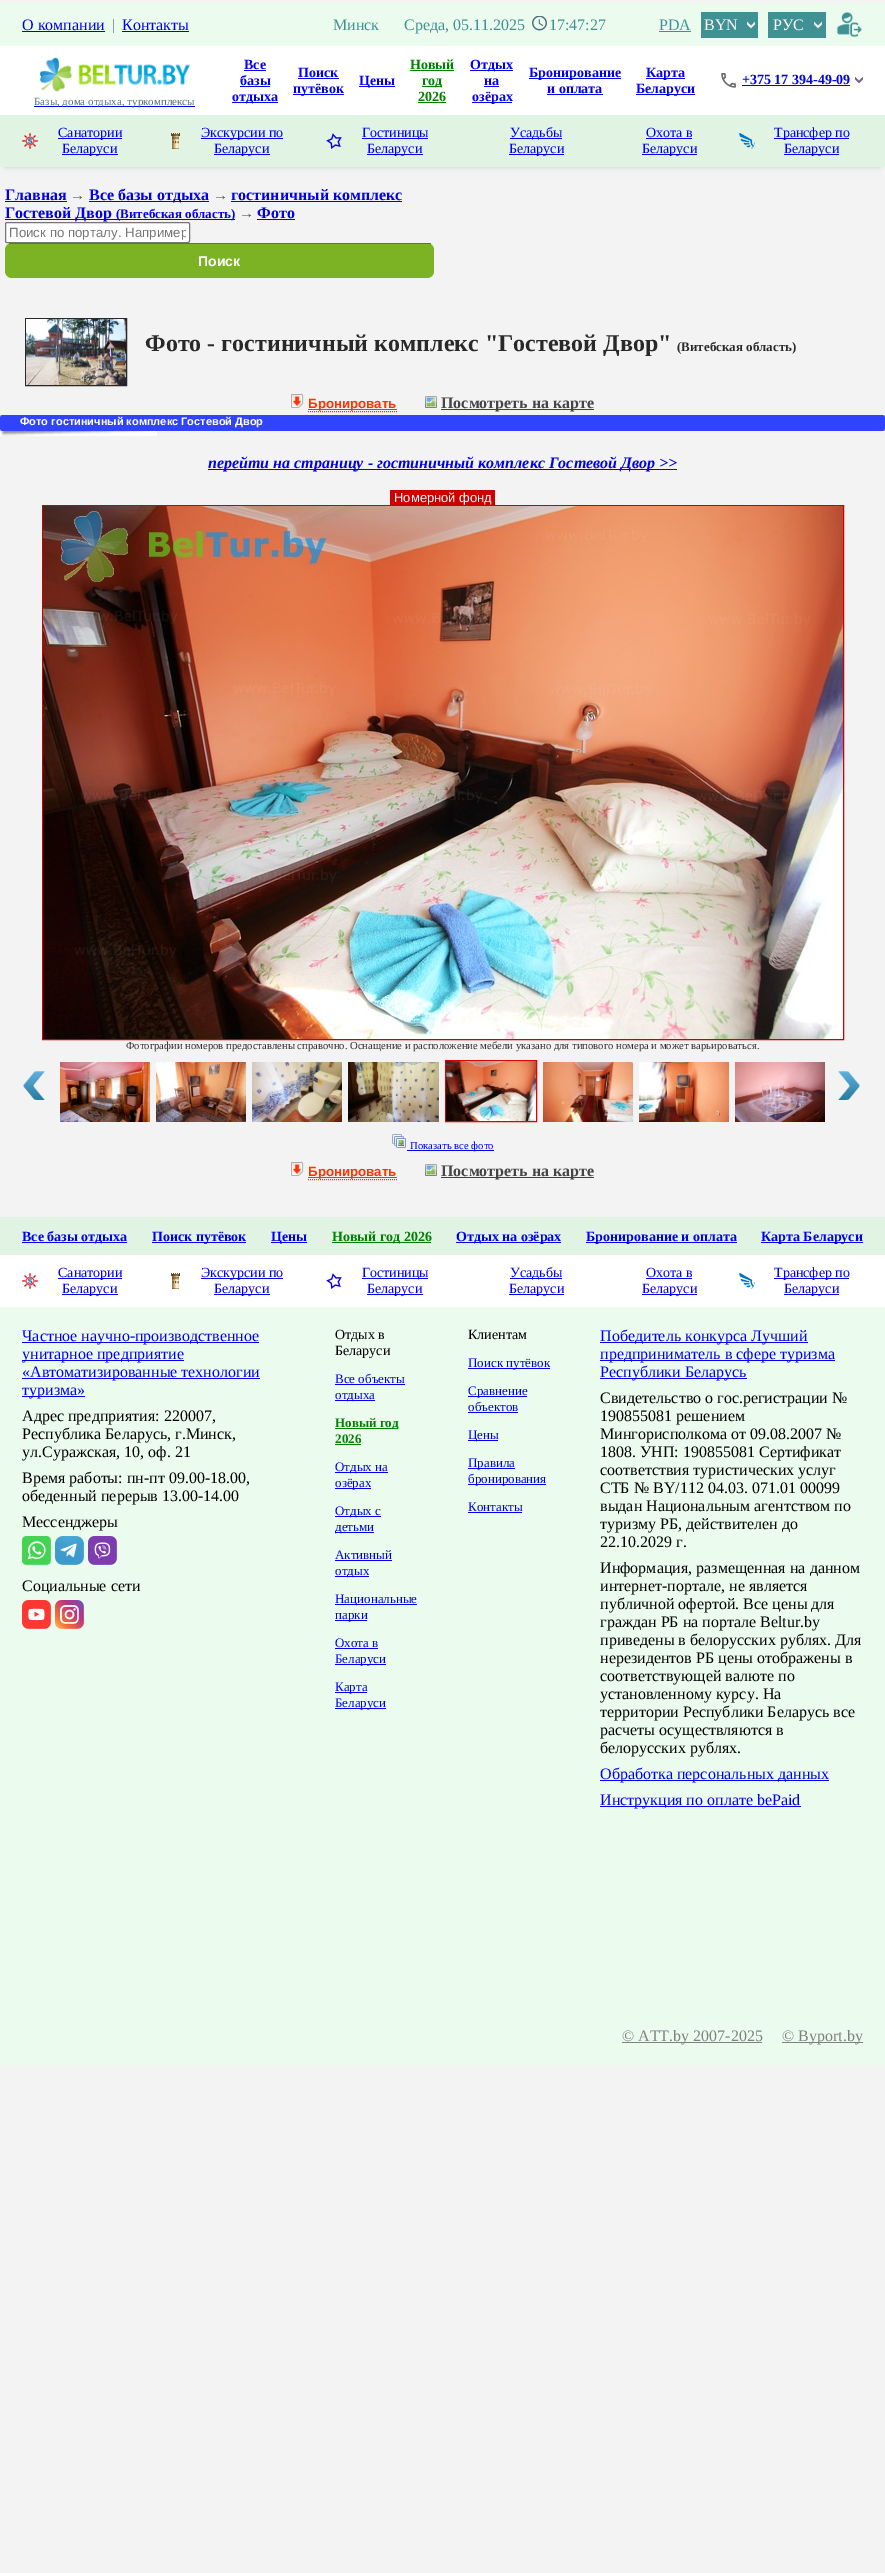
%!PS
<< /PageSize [885 2573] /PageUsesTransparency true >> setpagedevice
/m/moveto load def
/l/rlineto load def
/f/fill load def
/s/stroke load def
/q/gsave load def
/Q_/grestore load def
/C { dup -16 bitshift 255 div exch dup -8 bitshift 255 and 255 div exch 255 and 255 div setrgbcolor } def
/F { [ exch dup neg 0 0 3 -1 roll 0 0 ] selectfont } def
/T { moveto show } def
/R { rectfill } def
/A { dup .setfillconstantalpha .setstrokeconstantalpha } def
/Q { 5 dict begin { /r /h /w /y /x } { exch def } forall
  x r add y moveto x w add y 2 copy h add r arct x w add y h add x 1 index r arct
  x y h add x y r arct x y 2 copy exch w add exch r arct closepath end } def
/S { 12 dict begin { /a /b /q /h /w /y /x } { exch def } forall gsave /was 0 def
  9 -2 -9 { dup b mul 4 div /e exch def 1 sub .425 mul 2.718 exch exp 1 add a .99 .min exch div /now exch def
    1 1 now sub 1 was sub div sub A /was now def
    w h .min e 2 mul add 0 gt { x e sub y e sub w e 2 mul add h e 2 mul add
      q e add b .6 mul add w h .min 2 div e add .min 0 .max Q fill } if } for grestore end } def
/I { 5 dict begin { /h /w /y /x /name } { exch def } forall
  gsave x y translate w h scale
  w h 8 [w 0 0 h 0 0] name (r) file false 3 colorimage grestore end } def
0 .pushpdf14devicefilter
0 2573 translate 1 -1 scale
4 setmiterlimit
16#F3F3F3 C
0 0 885 2573 R
16#223C50 C
5 13 875 154 0 2.5 .2 S
16#FFFFFF C
0 46 885 69 R
16#EBFBED C
0 3 885 43 R
/LiberationSerif-Regular 16 F
16#0000EE C
(О компании) 22 30 T
22 31 83 1 R
16#9A9A9A C
113 19 1 14 R
16#0000EE C
(Контакты) 122 30 T
122 31 67 1 R
16#3F9194 C
(Минск) 333 30 T
(Среда, 05.11.2025) 404 30 T
(1.rgb) 532 16 15 15 I
(17:47:27) 549 30 T
(PDA) 659 30 T
659 31 32 1 R
701 12 57 26 R
16#FFFFFF C
(BYN) 704 30 T
(2.rgb) 747 21 8 8 I
16#3F9194 C
768 12 58 26 R
16#FFFFFF C
(РУС) 773 30 T
(2.rgb) 814 21 8 8 I
(3.rgb) 836 12 26 26 I
/LiberationSerif-Bold 14 F
16#0000EE C
(Все) 244 69 T
244 70 22 1 R
(базы) 240 85 T
240 86 30 1 R
232 102 46 1 R
(отдыха) 232 101 T
(Поиск) 298 77 T
298 78 41 1 R
293 94 51 1 R
(путёвок) 293 93 T
359 86 36 1 R
(Цены) 359 85 T
16#008000 C
(Новый) 410 69 T
410 70 44 1 R
422 86 20 1 R
(год) 422 85 T
(2026) 418 101 T
418 102 28 1 R
16#0000EE C
470 70 43 1 R
(Отдых) 470 69 T
(на) 484 85 T
484 86 15 1 R
472 102 40 1 R
(озёрах) 472 101 T
529 78 92 1 R
(Бронирование) 529 77 T
(и оплата) 547 93 T
547 94 56 1 R
646 78 39 1 R
(Карта) 646 77 T
636 94 59 1 R
(Беларуси) 636 93 T
(4.rgb) 721 73 15 15 I
(+375 17 394-49-09) 742 84 T
742 85 108 1 R
(5.rgb) 855 76 8 8 I
(6.rgb) 40 57 150 35 I
34 106 161 1 R
/LiberationSerif-Regular 11 F
16#546E7A C
(Базы, дома отдыха, туркомплексы) 34 105 T
16#E1F3E3 C
0 115 885 52 R
(7.rgb) 22 133 16 16 I
16#0000EE C
58 138 64 1 R
/LiberationSerif-Regular 14 F
(Санатории) 58 137 T
62 154 56 1 R
(Беларуси) 62 153 T
(8.rgb) 171 133 9 16 I
201 138 82 1 R
(Экскурсии по) 201 137 T
214 154 56 1 R
(Беларуси) 214 153 T
(9.rgb) 326 133 16 16 I
362 138 66 1 R
(Гостиницы) 362 137 T
367 154 56 1 R
(Беларуси) 367 153 T
510 138 52 1 R
(Усадьбы) 510 137 T
509 154 55 1 R
(Беларуси) 509 153 T
(Охота в) 646 137 T
646 138 46 1 R
642 154 55 1 R
(Беларуси) 642 153 T
(10.rgb) 739 133 16 16 I
774 138 75 1 R
(Трансфер по) 774 137 T
784 154 55 1 R
(Беларуси) 784 153 T
/LiberationSerif-Bold 16 F
(Главная) 5 200 T
5 201 62 1 R
/LiberationSerif-Bold 15 F
16#454545 C
(→) 70 200 T
16#0000EE C
89 201 120 1 R
/LiberationSerif-Bold 16 F
(Все базы отдыха) 89 200 T
/LiberationSerif-Bold 15 F
16#454545 C
(→) 213 200 T
/LiberationSerif-Bold 16 F
16#0000EE C
(гостиничный комплекс) 231 200 T
231 201 171 1 R
5 219 230 1 R
(Гостевой Двор) 5 218 T
/LiberationSerif-Bold 13 F
(\(Витебская область\)) 116 218 T
/LiberationSerif-Bold 15 F
16#454545 C
(→) 239 218 T
/LiberationSerif-Bold 16 F
16#0000EE C
(Фото) 257 218 T
257 219 38 1 R
16#FFFFFF C
5.5 222.5 184 20 1.5 Q q f Q_
16#767676 C
s
q
9 225 177 15 rectclip
/LiberationSans-Regular 13.3 F
16#757575 C
(Поиск по порталу. Например) 9 237 T
Q_
16#7BB324 C
5 243 429 35 7 Q f
16#538018 C
9 243 422 1 R
/LiberationSans-Bold 14 F
16#FFFFFF C
(Поиск) 198 266 T
16#292929 C
25.5 318.5 101 67 rectstroke
(11.rgb) 26 319 100 66 I
/LiberationSerif-Bold 24 F
(Фото - гостиничный комплекс "Гостевой Двор") 145 351 T
/LiberationSerif-Bold 13 F
(\(Витебская область\)) 677 351 T
(12.rgb) 291 394 13 14 I
16#FF3300 C
308 409 89 1 R
/LiberationSans-Bold 13.3 F
(Бронировать) 308 408 T
[1 1] 0 setdash
308 411.5 m 89 0 l s
(13.rgb) 425 396 12 12 I
16#414141 C
441 409 153 1 R
/LiberationSerif-Bold 16 F
16#454545 C
(Поcмотреть на карте) 441 408 T
16#3044FE C
0 415 885 16 R
(14.rgb) 883 415 2 16 I
(15.rgb) 0 415 2 16 I
/LiberationSans-Bold 11 F
16#FFFFFF C
(Фото гостиничный комплекс Гостевой Двор) 20 425 T
(16.rgb) 0 431 157 5 I
16#0000EE C
208 469 469 1 R
/LiberationSerif-BoldItalic 16 F
(перейти на страницу - гостиничный комплекс Гостевой Двор >>) 208 468 T
16#CC0000 C
390 490 105 15 R
/LiberationSans-Regular 13 F
16#FFFFFF C
(Номерной фонд) 394 502 T
16#CC0000 C
[] 0 setdash
42.5 505.5 801 534 rectstroke
(17.rgb) 43 506 800 533 I
/LiberationSerif-Regular 10.67 F
16#313131 C
(Фотографии номеров предоставлены справочно. Оснащение и расположение мебели указано для типового номера и может варьироваться.) 126 1049 T
(18.rgb) 23 1071 22 29 I
(19.rgb) 838 1071 22 29 I
16#DF0000 C
445.5 1060.5 91 61 rectstroke
(20.rgb) 60 1062 90 60 I
(21.rgb) 156 1062 90 60 I
(22.rgb) 252 1062 90 60 I
(23.rgb) 348 1062 91 60 I
(24.rgb) 446 1061 90 60 I
(25.rgb) 543 1062 90 60 I
(26.rgb) 639 1062 90 60 I
(27.rgb) 735 1062 90 60 I
(28.rgb) 392 1134 14 14 I
16#0000EE C
407 1150 87 1 R
(Показать все фото) 410 1149 T
(12.rgb) 291 1162 13 14 I
16#FF3300 C
308 1177 89 1 R
/LiberationSans-Bold 13.3 F
(Бронировать) 308 1176 T
[1 1] 0 setdash
308 1179.5 m 89 0 l s
(13.rgb) 425 1164 12 12 I
16#414141 C
441 1177 153 1 R
/LiberationSerif-Bold 16 F
16#454545 C
(Поcмотреть на карте) 441 1176 T
16#EBFBED C
0 1307 885 758 R
16#E1F3E3 C
0 1217 885 38 R
16#0000EE C
22 1242 105 1 R
/LiberationSerif-Bold 14 F
(Все базы отдыха) 22 1241 T
152 1242 94 1 R
(Поиск путёвок) 152 1241 T
271 1242 36 1 R
(Цены) 271 1241 T
16#008000 C
332 1242 99 1 R
(Новый год 2026) 332 1241 T
16#0000EE C
456 1242 105 1 R
(Отдых на озёрах) 456 1241 T
586 1242 151 1 R
(Бронирование и оплата) 586 1241 T
761 1242 102 1 R
(Карта Беларуси) 761 1241 T
16#FFFFFF C
0 1255 885 52 R
(29.rgb) 22 1273 16 16 I
16#0000EE C
58 1278 64 1 R
/LiberationSerif-Regular 14 F
(Санатории) 58 1277 T
62 1294 56 1 R
(Беларуси) 62 1293 T
(30.rgb) 171 1273 9 16 I
201 1278 82 1 R
(Экскурсии по) 201 1277 T
214 1294 56 1 R
(Беларуси) 214 1293 T
(31.rgb) 326 1273 16 16 I
362 1278 66 1 R
(Гостиницы) 362 1277 T
367 1294 56 1 R
(Беларуси) 367 1293 T
510 1278 52 1 R
(Усадьбы) 510 1277 T
509 1294 55 1 R
(Беларуси) 509 1293 T
(Охота в) 646 1277 T
646 1278 46 1 R
642 1294 55 1 R
(Беларуси) 642 1293 T
(32.rgb) 739 1273 16 16 I
774 1278 75 1 R
(Трансфер по) 774 1277 T
784 1294 55 1 R
(Беларуси) 784 1293 T
22 1342 237 1 R
/LiberationSerif-Regular 16 F
(Частное научно-производственное) 22 1341 T
22 1360 162 1 R
(унитарное предприятие) 22 1359 T
22 1378 238 1 R
(«Автоматизированные технологии) 22 1377 T
22 1396 63 1 R
(туризма») 22 1395 T
16#000000 C
(Адрес предприятия: 220007,) 22 1421 T
(Республика Беларусь, г.Минск,) 22 1439 T
(ул.Суражская, 10, оф. 21) 22 1457 T
(Время работы: пн-пт 09.00-18.00,) 22 1483 T
(обеденный перерыв 13.00-14.00) 22 1501 T
(Мессенджеры) 22 1527 T
(33.rgb) 22 1536 29 29 I
(34.rgb) 55 1536 29 29 I
(35.rgb) 88 1536 29 29 I
(Социальные сети) 22 1591 T
(36.rgb) 22 1600 29 29 I
(37.rgb) 55 1600 29 29 I
/LiberationSerif-Regular 14 F
(Отдых в) 335 1339 T
(Беларуси) 335 1355 T
/LiberationSerif-Regular 13 F
16#0000EE C
(Все объекты) 335 1383 T
335 1384 70 1 R
335 1400 40 1 R
(отдыха) 335 1399 T
16#008000 C
335 1428 63 1 R
/LiberationSerif-Bold 13 F
(Новый год) 335 1427 T
(2026) 335 1443 T
335 1444 26 1 R
16#0000EE C
335 1472 53 1 R
/LiberationSerif-Regular 13 F
(Отдых на) 335 1471 T
335 1488 36 1 R
(озёрах) 335 1487 T
335 1516 46 1 R
(Отдых с) 335 1515 T
335 1532 39 1 R
(детьми) 335 1531 T
(Активный) 335 1559 T
335 1560 57 1 R
335 1576 34 1 R
(отдых) 335 1575 T
335 1604 82 1 R
(Национальные) 335 1603 T
335 1620 32 1 R
(парки) 335 1619 T
(Охота в) 335 1647 T
335 1648 43 1 R
335 1664 51 1 R
(Беларуси) 335 1663 T
335 1692 32 1 R
(Карта) 335 1691 T
335 1708 51 1 R
(Беларуси) 335 1707 T
/LiberationSerif-Regular 14 F
16#000000 C
(Клиентам) 468 1339 T
16#0000EE C
468 1368 82 1 R
/LiberationSerif-Regular 13 F
(Поиск путёвок) 468 1367 T
468 1396 59 1 R
(Сравнение) 468 1395 T
(объектов) 468 1411 T
468 1412 50 1 R
468 1440 30 1 R
(Цены) 468 1439 T
468 1468 47 1 R
(Правила) 468 1467 T
468 1484 78 1 R
(бронирования) 468 1483 T
(Контакты) 468 1511 T
468 1512 54 1 R
600 1342 208 1 R
/LiberationSerif-Regular 16 F
(Победитель конкурса Лучший) 600 1341 T
600 1360 235 1 R
(предприниматель в сфере туризма) 600 1359 T
600 1378 147 1 R
(Республики Беларусь) 600 1377 T
16#000000 C
(Свидетельство о гос.регистрации №) 600 1403 T
(190855081 решением) 600 1421 T
(Мингорисполкома от 09.08.2007 №) 600 1439 T
(1808. УНП: 190855081 Сертификат) 600 1457 T
(соответствия туристических услуг) 600 1475 T
(СТБ № BY/112 04.03. 071.01 00099) 600 1493 T
(выдан Национальным агентством по) 600 1511 T
(туризму РБ, действителен до) 600 1529 T
(22.10.2029 г.) 600 1547 T
(Информация, размещенная на данном) 600 1573 T
(интернет-портале, не является) 600 1591 T
(публичной офертой. Все цены для) 600 1609 T
(граждан РБ на портале Beltur.by) 600 1627 T
(приведены в белорусских рублях. Для) 600 1645 T
(нерезидентов РБ цены отображены в) 600 1663 T
(соответствующей валюте по) 600 1681 T
(установленному курсу. На) 600 1699 T
(территории Республики Беларусь все) 600 1717 T
(расчеты осуществляются в) 600 1735 T
(белорусских рублях.) 600 1753 T
16#0000EE C
600 1780 229 1 R
(Обработка персональных данных) 600 1779 T
600 1806 201 1 R
(Инструкция по оплате bePaid) 600 1805 T
16#808080 C
622 2042 140 1 R
(© ATT.by 2007-2025) 622 2041 T
782 2042 81 1 R
(© Byport.by) 782 2041 T
.poppdf14devicefilter showpage
